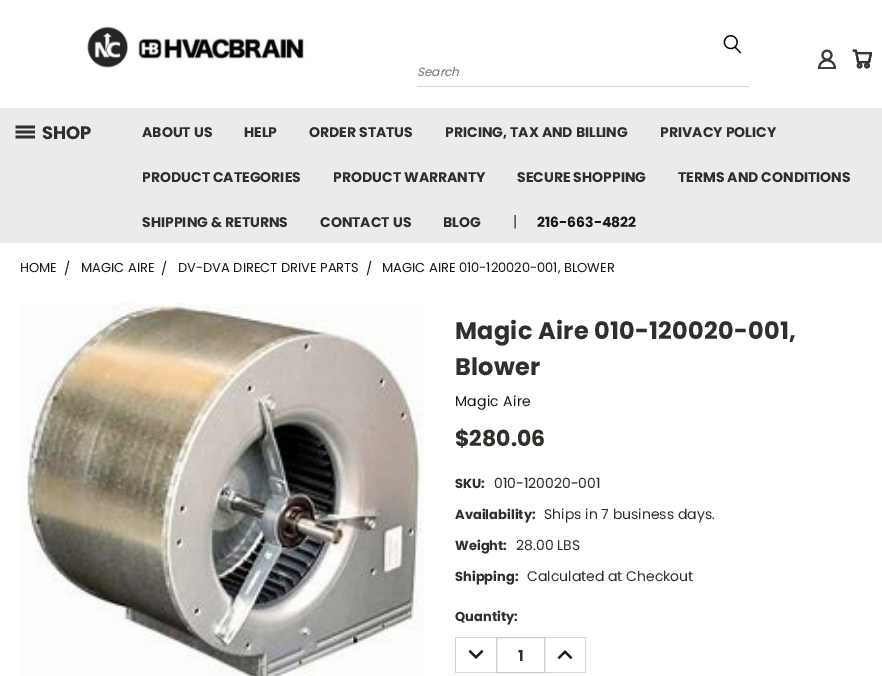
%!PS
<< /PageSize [882 676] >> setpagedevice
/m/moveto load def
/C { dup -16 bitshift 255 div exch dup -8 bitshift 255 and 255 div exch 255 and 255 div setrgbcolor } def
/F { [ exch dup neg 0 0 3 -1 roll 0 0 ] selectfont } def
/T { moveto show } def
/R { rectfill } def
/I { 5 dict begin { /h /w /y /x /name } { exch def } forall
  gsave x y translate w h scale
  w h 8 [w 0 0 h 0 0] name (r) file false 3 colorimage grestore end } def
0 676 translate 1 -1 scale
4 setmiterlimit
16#FFFFFF C
0 0 882 676 R
(1.rgb) 87 26 254 52 I
(2.rgb) 818 49 18 20 I
(3.rgb) 852 49 20 20 I
(4.rgb) 723 35 18 19 I
16#D7D7D7 C
417 86 332 1 R
/Poppins-Italic 12 F
16#70706E C
(Search) 417 76 T
16#EBEBEB C
0 108 882 135 R
(5.rgb) 15 125 20 14 I
/Poppins-Bold 18 F
16#2F2F2B C
(SHOP) 42 139 T
/Poppins-Bold 14 F
(ABOUT US) 142 137 T
(HELP) 244 137 T
(ORDER STATUS) 309 137 T
(PRICING, TAX AND BILLING) 445 137 T
(PRIVACY POLICY) 660 137 T
(PRODUCT CATEGORIES) 142 182 T
(PRODUCT WARRANTY) 333 182 T
(SECURE SHOPPING) 517 182 T
(TERMS AND CONDITIONS) 678 182 T
(SHIPPING & RETURNS) 142 227 T
(CONTACT US) 320 227 T
(BLOG) 443 227 T
/Poppins-Regular 15 F
(|) 513 227 T
/Poppins-Bold 14 F
16#191919 C
(216-663-4822) 537 227 T
/Poppins-Regular 13 F
(HOME) 20 272 T
(/) 64 273 T
(MAGIC AIRE) 81 272 T
(/) 161 273 T
(DV-DVA DIRECT DRIVE PARTS) 178 272 T
(/) 366 273 T
(MAGIC AIRE 010-120020-001, BLOWER) 382 272 T
(6.rgb) 20 303 404 373 I
/Poppins-Bold 24 F
16#2F2F2B C
455 339 m .25 0 (Magic Aire 010-120020-001,) ashow
455 375 m .25 0 (Blower) ashow
/Poppins-Regular 14 F
16#191919 C
455 406 m .25 0 (Magic Aire) ashow
/Poppins-Bold 22 F
16#2F2F2B C
($280.06) 455 446 T
/Poppins-Bold 13 F
(SKU:) 455 488 T
/Poppins-Regular 14 F
(010-120020-001) 494 488 T
/Poppins-Bold 13 F
(Availability:) 455 519 T
/Poppins-Regular 14 F
(Ships in 7 business days.) 544 519 T
/Poppins-Bold 13 F
(Weight:) 455 550 T
/Poppins-Regular 14 F
(28.00 LBS) 516 550 T
/Poppins-Bold 13 F
(Shipping:) 455 581 T
/Poppins-Regular 14 F
(Calculated at Checkout) 527 581 T
/Poppins-Bold 13 F
(Quantity:) 455 621 T
16#D7D7D7 C
455 637 41 1 R
455 672 41 1 R
455 637 1 36 R
(7.rgb) 468 649 16 10 I
16#CCCCCC C
496.5 637.5 48 35 rectstroke
/Poppins-Bold 15 F
16#2F2F2B C
(1) 518 661 T
16#D7D7D7 C
545 637 41 1 R
585 637 1 36 R
545 672 41 1 R
(8.rgb) 557 650 16 10 I
showpage
